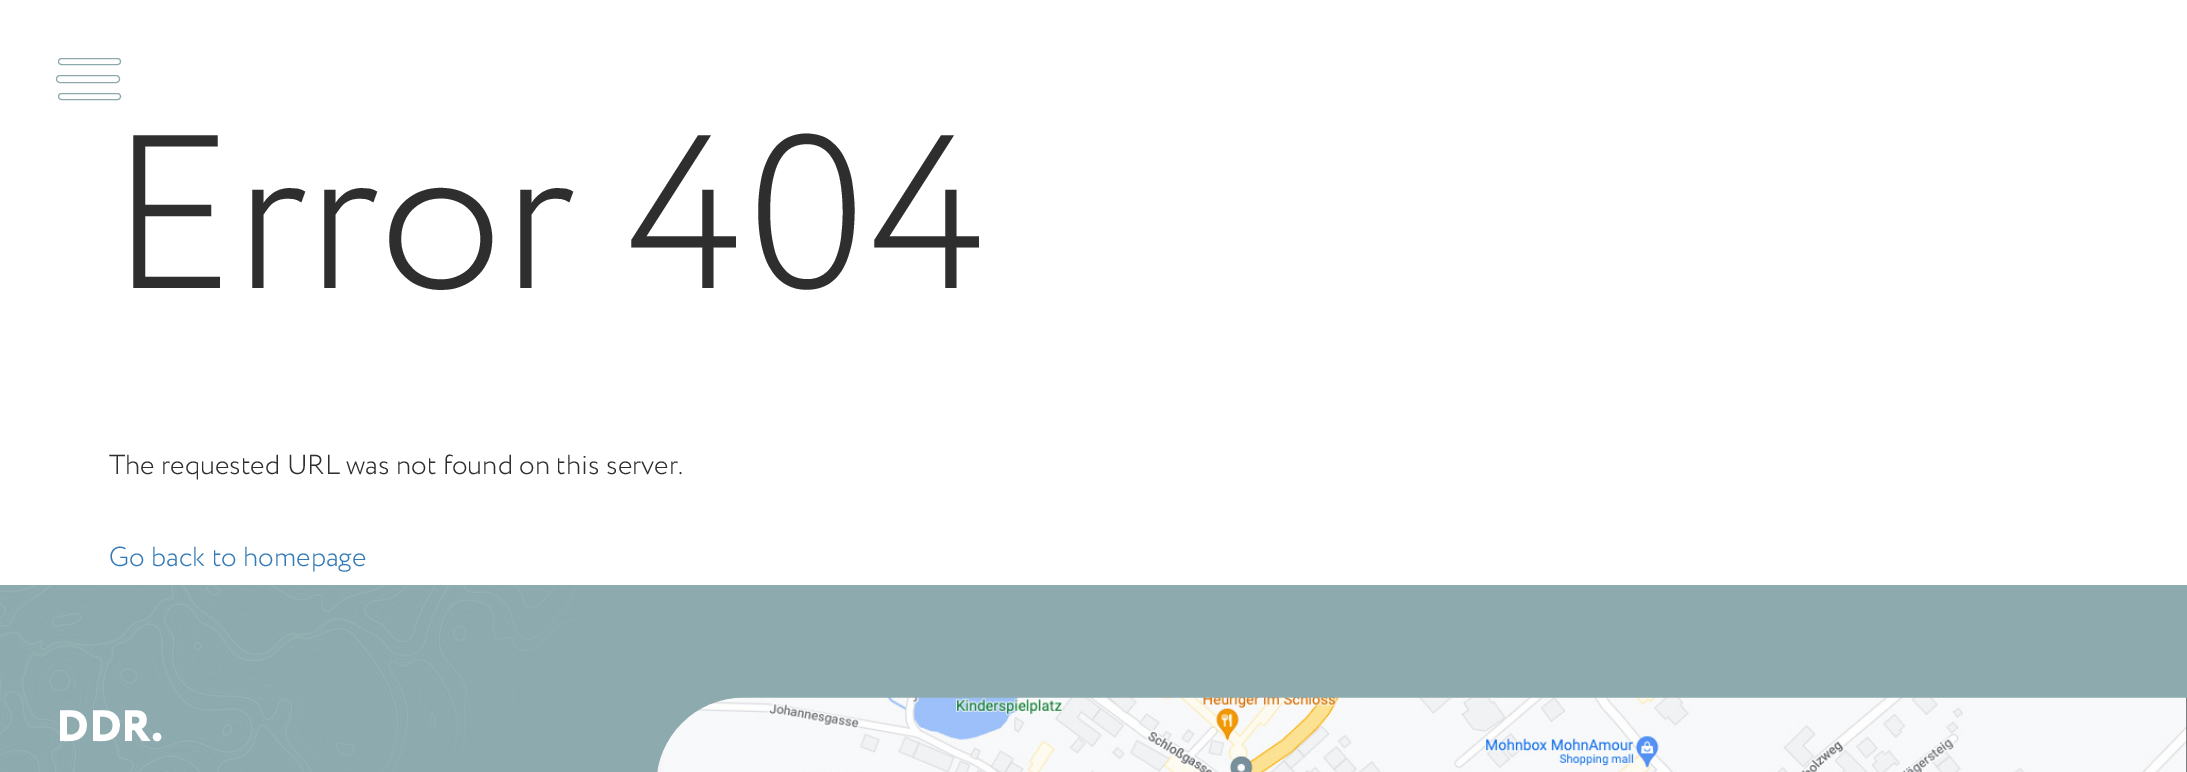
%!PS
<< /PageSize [2187 772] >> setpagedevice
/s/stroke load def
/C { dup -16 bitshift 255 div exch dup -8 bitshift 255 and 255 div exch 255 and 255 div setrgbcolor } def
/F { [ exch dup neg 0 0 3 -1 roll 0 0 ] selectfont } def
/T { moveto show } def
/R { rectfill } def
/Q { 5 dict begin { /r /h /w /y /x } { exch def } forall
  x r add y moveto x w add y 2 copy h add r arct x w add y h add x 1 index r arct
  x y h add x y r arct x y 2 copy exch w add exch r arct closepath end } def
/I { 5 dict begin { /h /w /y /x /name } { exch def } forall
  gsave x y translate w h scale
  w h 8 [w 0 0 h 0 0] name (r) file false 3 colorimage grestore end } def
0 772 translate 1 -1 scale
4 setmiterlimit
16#FFFFFF C
0 0 2187 772 R
16#8DABAE C
56.5 75.5 63 7 3.5 Q s
58.5 58.5 62 6 3 Q s
58.5 93.5 62 6 3 Q s
/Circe-Light 218.75 F
16#2E2E2E C
(Error 404) 109 288 T
/Circe-Light 27.5 F
(The requested URL was not found on this server.) 109 474 T
16#337AB7 C
(Go back to homepage) 109 566 T
16#8DABAE C
0 585 2187 187 R
(1.rgb) 0 585 575 187 I
/Circe-ExtraBold 44 F
16#FFFFFF C
(DDR.) 56 741 T
(2.rgb) 657 697 1530 75 I
showpage
